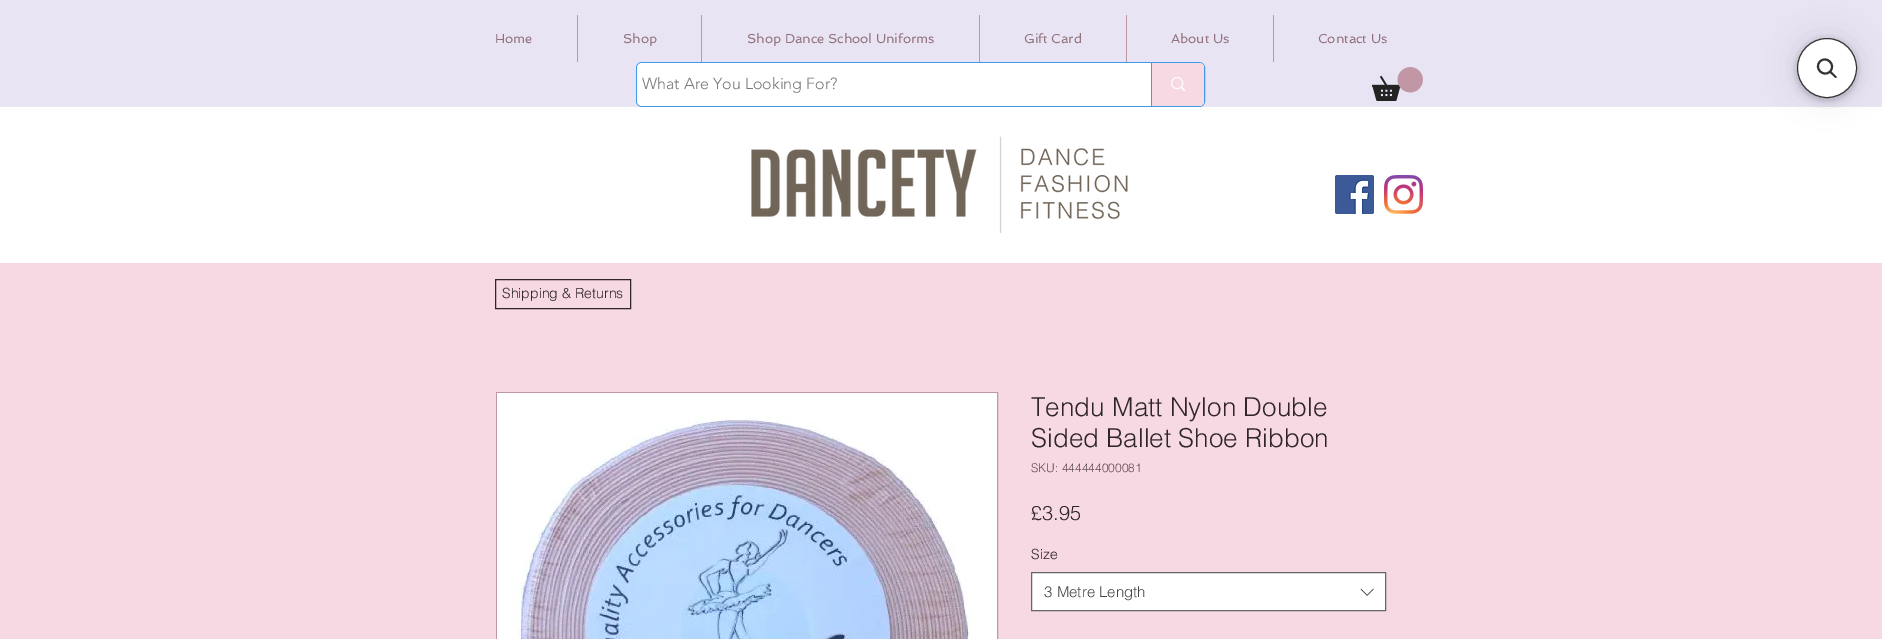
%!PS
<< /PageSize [1882 639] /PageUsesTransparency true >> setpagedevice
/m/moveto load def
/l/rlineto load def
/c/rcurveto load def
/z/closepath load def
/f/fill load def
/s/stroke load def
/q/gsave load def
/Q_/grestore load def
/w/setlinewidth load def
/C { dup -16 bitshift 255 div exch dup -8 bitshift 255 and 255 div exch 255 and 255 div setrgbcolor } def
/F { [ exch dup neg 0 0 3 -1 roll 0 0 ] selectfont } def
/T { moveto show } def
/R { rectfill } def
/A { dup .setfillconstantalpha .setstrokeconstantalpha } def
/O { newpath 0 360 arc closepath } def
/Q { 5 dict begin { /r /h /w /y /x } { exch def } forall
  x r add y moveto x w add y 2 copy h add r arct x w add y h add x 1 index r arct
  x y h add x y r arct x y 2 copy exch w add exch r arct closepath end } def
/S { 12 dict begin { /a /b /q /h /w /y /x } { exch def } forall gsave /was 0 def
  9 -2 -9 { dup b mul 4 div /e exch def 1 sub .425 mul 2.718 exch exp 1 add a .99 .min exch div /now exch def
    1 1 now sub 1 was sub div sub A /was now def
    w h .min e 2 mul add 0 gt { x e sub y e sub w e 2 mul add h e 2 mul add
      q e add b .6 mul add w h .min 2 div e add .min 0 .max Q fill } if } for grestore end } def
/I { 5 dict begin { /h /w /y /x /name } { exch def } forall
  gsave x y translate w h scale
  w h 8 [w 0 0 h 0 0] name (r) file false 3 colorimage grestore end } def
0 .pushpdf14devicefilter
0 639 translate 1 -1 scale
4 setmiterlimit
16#F7D9E3 C
0 0 1882 639 R
16#E9E4F4 C
0 0 1882 107 R
/Spinnaker-Regular 13 F
16#91717C C
(Home) 495 43 T
16#C297A5 C
577 15 1 47 R
16#91717C C
(Shop) 623 43 T
16#C297A5 C
701 15 1 47 R
16#91717C C
(Shop Dance School Uniforms) 747 43 T
16#C297A5 C
979 15 1 47 R
16#91717C C
(Gift Card) 1024 43 T
16#C297A5 C
1126 15 1 47 R
16#91717C C
(About Us) 1171 43 T
16#C297A5 C
1273 15 1 47 R
16#91717C C
(Contact Us) 1318 43 T
16#3D9BE9 C
636.5 62.5 568 44 5.5 Q s
16#FFFFFF C
637 63 567 43 5 Q f
/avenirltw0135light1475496-Light 16 F
16#787878 C
(What Are You Looking For?) 642 89 T
16#F7D9E3 C
1151 63 m 48 0 l 3 0 5 2 5 5 c 0 33 l 0 3 -2 5 -5 5 c -48 0 l z f
16#3D9BE9 C
1151 63 1 43 R
(1.rgb) 1171 77 14 15 I
(2.rgb) 1372 67 51 34 I
16#FFFFFF C
0 107 1882 156 R
(3.rgb) 751 136 377 98 I
(4.rgb) 1335 175 39 39 I
(5.rgb) 1384 175 39 39 I
16#302629 C
495.5 279.5 135 29 rectstroke
/helvetica-Light 14 F
(Shipping & Returns) 502 298 T
16#C297A5 C
496.5 392.5 501 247 rectstroke
(6.rgb) 497 393 500 246 I
/helvetica-Light 26 F
16#302629 C
(Tendu Matt Nylon Double) 1031 416 T
(Sided Ballet Shoe Ribbon) 1031 447 T
/helvetica-Light 12 F
16#614C52 C
(SKU: 444444000081) 1031 472 T
/helvetica-Light 20 F
16#302629 C
(£3.95) 1031 520 T
/helvetica-Light 14 F
(Size) 1031 559 T
16#FFFFFF C
1031.5 572.5 m 354 0 l 0 38 l -354 0 l z q f Q_
16#666666 C
s
/helvetica-Light 15 F
16#444444 C
(3 Metre Length) 1044 597 T
(7.rgb) 1360 588 14 8 I
16#000000 C
1797 42 60 60 30 4 .05 S
1797 40 60 60 30 4 .15 S
1797 38 60 60 30 15 .1 S
16#FFFFFF C
1827 68 29.5 O q f Q_
16#333333 C
s
2 w
1820 61.5 m 6.5 -6.5 16.5 3.5 10 10 c -6.5 6.5 -16.5 -3.5 -10 -10 c z s
1829 72 m 1.5 -1.5 l 6 6 l .5 1 -1 2 -1.5 1 c z f
.poppdf14devicefilter showpage
